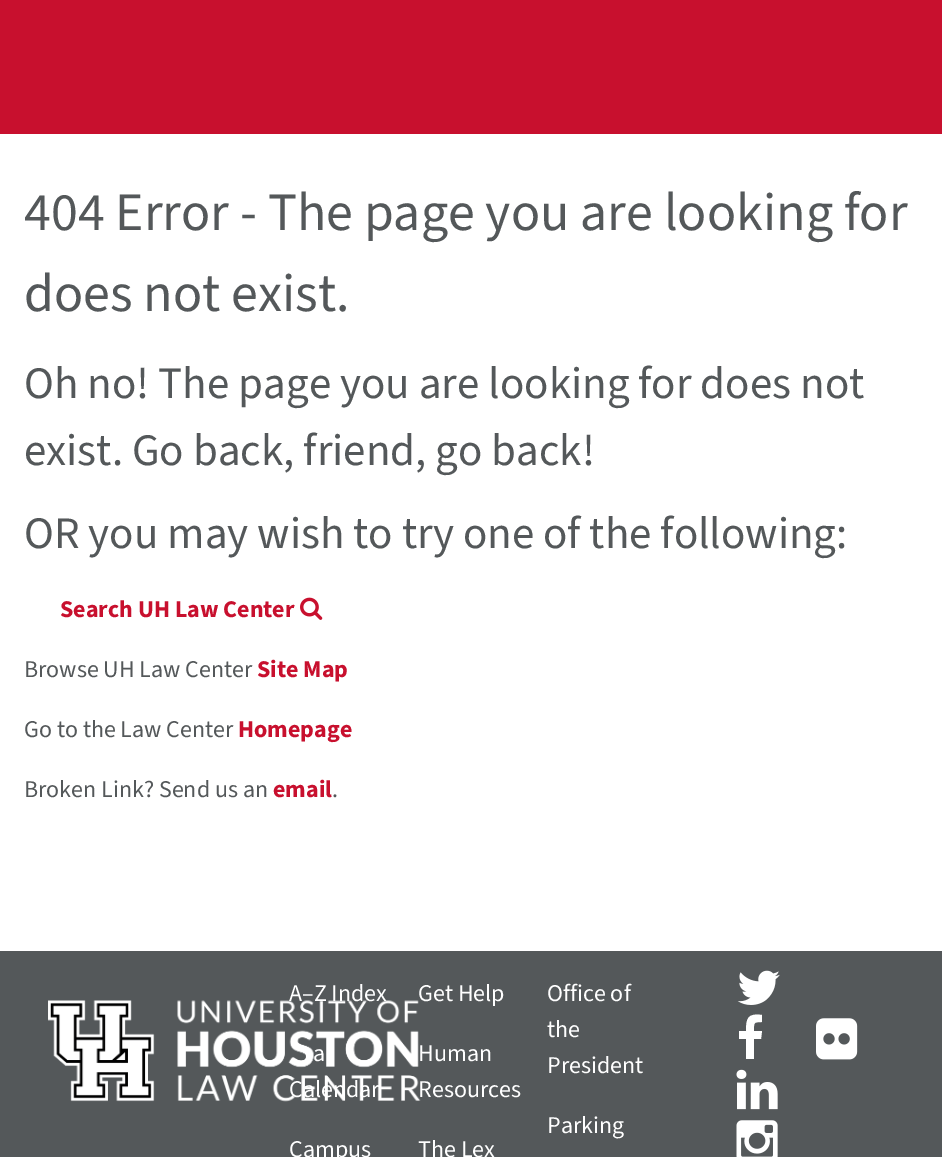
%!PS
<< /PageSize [942 1157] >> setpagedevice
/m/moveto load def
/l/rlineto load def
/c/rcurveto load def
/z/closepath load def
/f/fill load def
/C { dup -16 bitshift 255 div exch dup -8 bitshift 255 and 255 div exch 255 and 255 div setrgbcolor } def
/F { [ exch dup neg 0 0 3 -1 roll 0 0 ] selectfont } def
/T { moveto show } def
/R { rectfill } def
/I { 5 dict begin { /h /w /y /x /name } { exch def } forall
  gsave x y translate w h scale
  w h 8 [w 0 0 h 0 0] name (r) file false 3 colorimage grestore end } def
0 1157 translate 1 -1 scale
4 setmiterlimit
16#FFFFFF C
0 0 942 1157 R
16#C8102E C
0 0 942 134 R
/SourceSans3-Regular 54 F
16#54585A C
(404 Error - The page you are looking for) 24 230 T
(does not exist.) 24 311 T
/SourceSans3-Regular 45 F
(Oh no! The page you are looking for does not) 24 398 T
(exist. Go back, friend, go back!) 24 465 T
(OR you may wish to try one of the following:) 24 548 T
/SourceSans3-Bold 24 F
16#C8102E C
(Search UH Law Center) 60 617 T
(1.rgb) 300 597 23 23 I
/SourceSans3-Regular 24 F
16#54585A C
(Browse UH Law Center) 24 677 T
/SourceSans3-Bold 24 F
16#C8102E C
(Site Map) 257 677 T
/SourceSans3-Regular 24 F
16#54585A C
(Go to the Law Center) 24 737 T
/SourceSans3-Bold 24 F
16#C8102E C
(Homepage) 238 737 T
/SourceSans3-Regular 24 F
16#54585A C
(Broken Link? Send us an) 24 797 T
/SourceSans3-Bold 24 F
16#C8102E C
(email) 273 797 T
/SourceSans3-Regular 24 F
16#54585A C
(.) 332 797 T
0 951 942 206 R
(2.rgb) 48 1000 373 102 I
16#FFFFFF C
(A–Z Index) 289 1001 T
(a) 313 1061 T
(Calendar) 289 1097 T
(Campus) 289 1157 T
(Get Help) 418 1001 T
(Human) 418 1061 T
(Resources) 418 1097 T
(The Lex) 418 1157 T
(Office of) 547 1001 T
(the) 547 1037 T
(President) 547 1073 T
(Parking) 547 1133 T
(3.rgb) 737 970 43 35 I
762 1015 m 0 7 l -9 0 -8 1 -8 9 c 8 0 l -1 8 l -7 0 l 0 20 l -8 0 l 0 -20 l -7 0 l 0 -8 l 7 0 l 0 -13 2 -18 16 -16 c z f
(4.rgb) 816 1018 42 42 I
(5.rgb) 736 1069 42 41 I
(6.rgb) 736 1120 42 37 I
showpage
